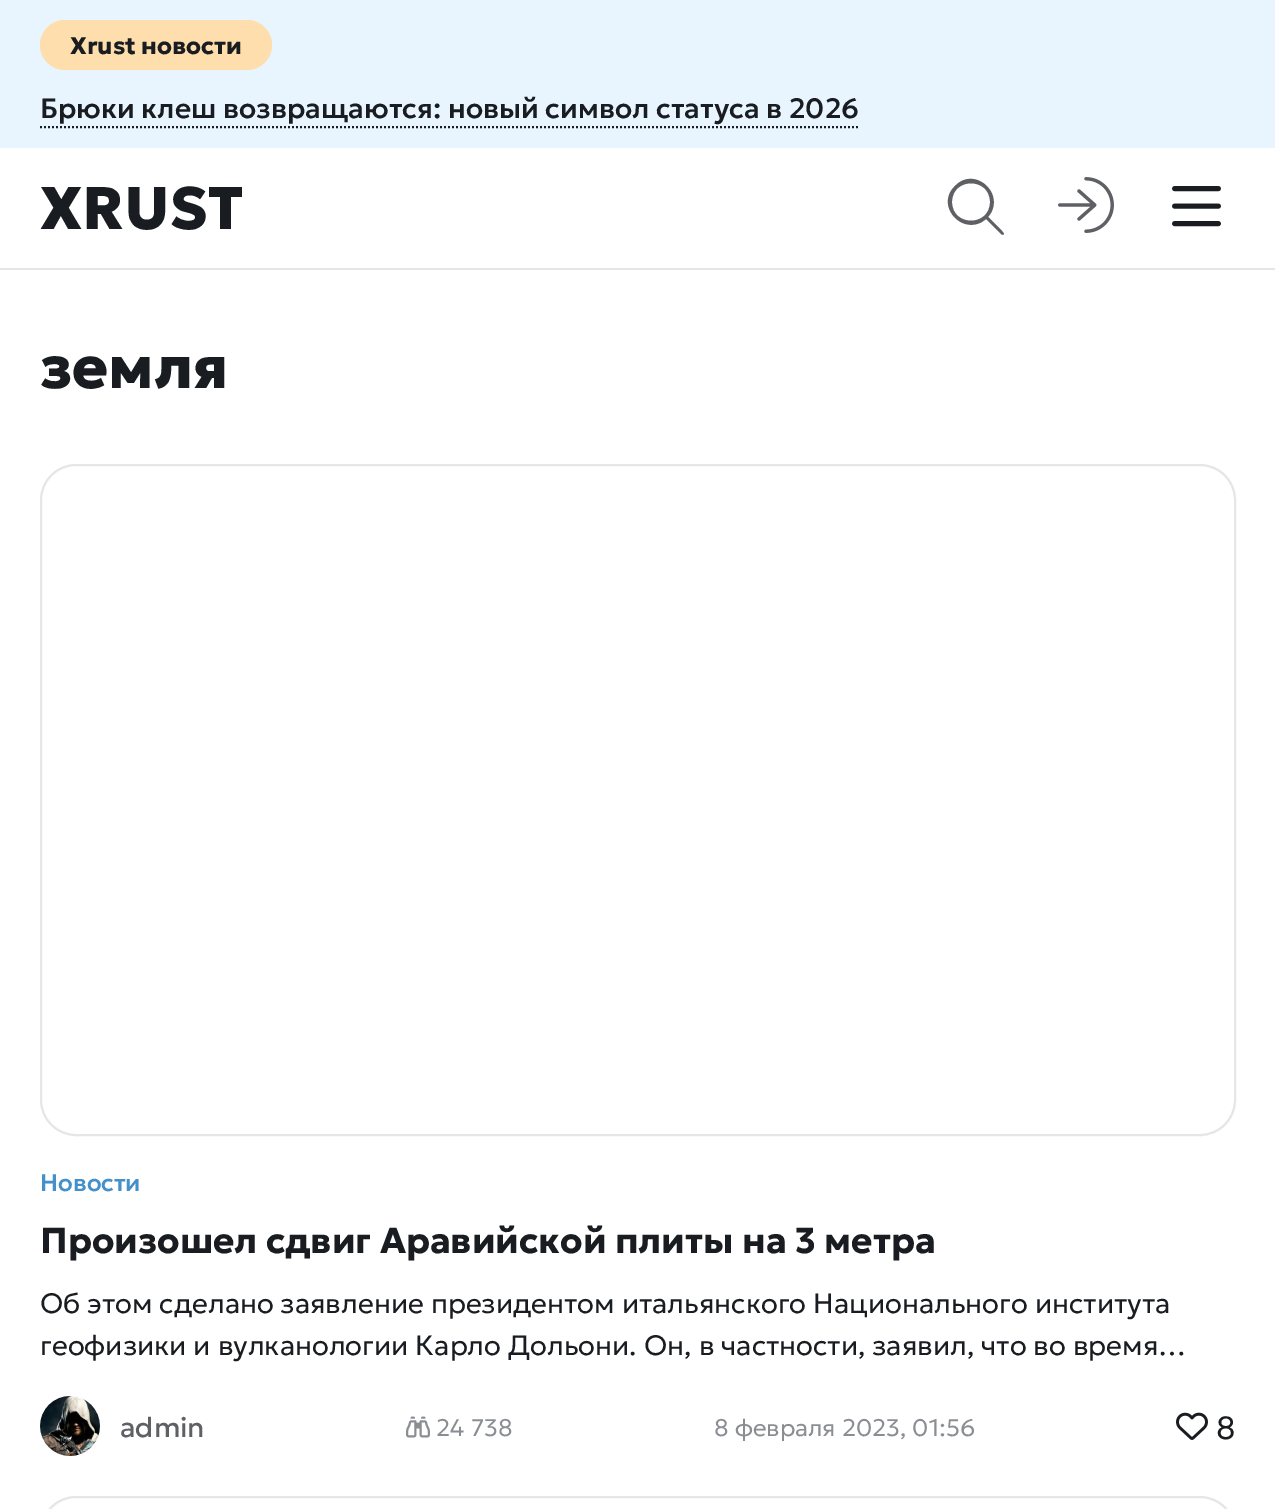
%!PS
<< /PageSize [1275 1509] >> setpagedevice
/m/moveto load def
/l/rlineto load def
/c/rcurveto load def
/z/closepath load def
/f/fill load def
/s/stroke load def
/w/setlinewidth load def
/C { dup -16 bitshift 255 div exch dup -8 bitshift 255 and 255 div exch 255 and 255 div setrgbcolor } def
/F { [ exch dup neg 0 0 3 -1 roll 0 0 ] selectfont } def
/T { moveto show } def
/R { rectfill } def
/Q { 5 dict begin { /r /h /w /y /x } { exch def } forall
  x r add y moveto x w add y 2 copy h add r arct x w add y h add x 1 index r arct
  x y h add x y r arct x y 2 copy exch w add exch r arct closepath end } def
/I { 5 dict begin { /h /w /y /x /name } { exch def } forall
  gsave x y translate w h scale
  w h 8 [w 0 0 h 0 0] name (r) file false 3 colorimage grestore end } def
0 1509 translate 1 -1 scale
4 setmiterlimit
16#FFFFFF C
0 0 1275 1509 R
16#E8F5FF C
0 0 1275 148 R
16#FFDEAD C
40 20 232 50 25 Q f
/Geologica-Bold 24 F
16#191C20 C
(Xrust новости) 70 54 T
2 w
[2 2] 0 setdash
40 127 m 820 0 l s
/Geologica-Medium 28 F
(Брюки клеш возвращаются: новый символ статуса в 2026) 40 118 T
16#E6E6E6 C
0 268 1275 2 R
/Geologica-ExtraBold 60 F
16#191C20 C
(XRUST) 40 229 T
16#5E6064 C
990 202 m 0 -25 -38 -25 -38 0 c 0 25 38 25 38 0 c z 986 219 m -22 19 -52 -13 -31 -33 c 20 -21 52 9 33 31 c 2 2 16 15 16 17 c 0 1 -2 1 -3 0 c z f
(1.rgb) 1058 177 56 56 I
(2.rgb) 1172 186 49 41 I
16#191C20 C
(земля) 40 388 T
16#E6E6E6 C
[] 0 setdash
41 465 1194 670 35 Q s
/Geologica-Medium 24 F
16#4390CB C
(Новости) 40 1191 T
/Geologica-Bold 36 F
16#191C20 C
(Произошел сдвиг Аравийской плиты на 3 метра) 40 1253 T
/Geologica-Light 28 F
(Об этом сделано заявление президентом итальянского Национального института) 40 1313 T
(геофизики и вулканологии Карло Дольони. Он, в частности, заявил, что во время…) 40 1355 T
(3.rgb) 40 1396 60 60 I
/Geologica-Regular 28 F
16#5E6064 C
(admin) 120 1437 T
(4.rgb) 406 1416 24 22 I
/Geologica-Light 24 F
16#8A8E93 C
(24 738) 436 1436 T
(8 февраля 2023, 01:56) 714 1436 T
(5.rgb) 1176 1412 32 28 I
/Geologica-Light 32 F
16#191C20 C
(8) 1216 1439 T
16#E6E6E6 C
41 1497 1194 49 35 Q s
showpage
